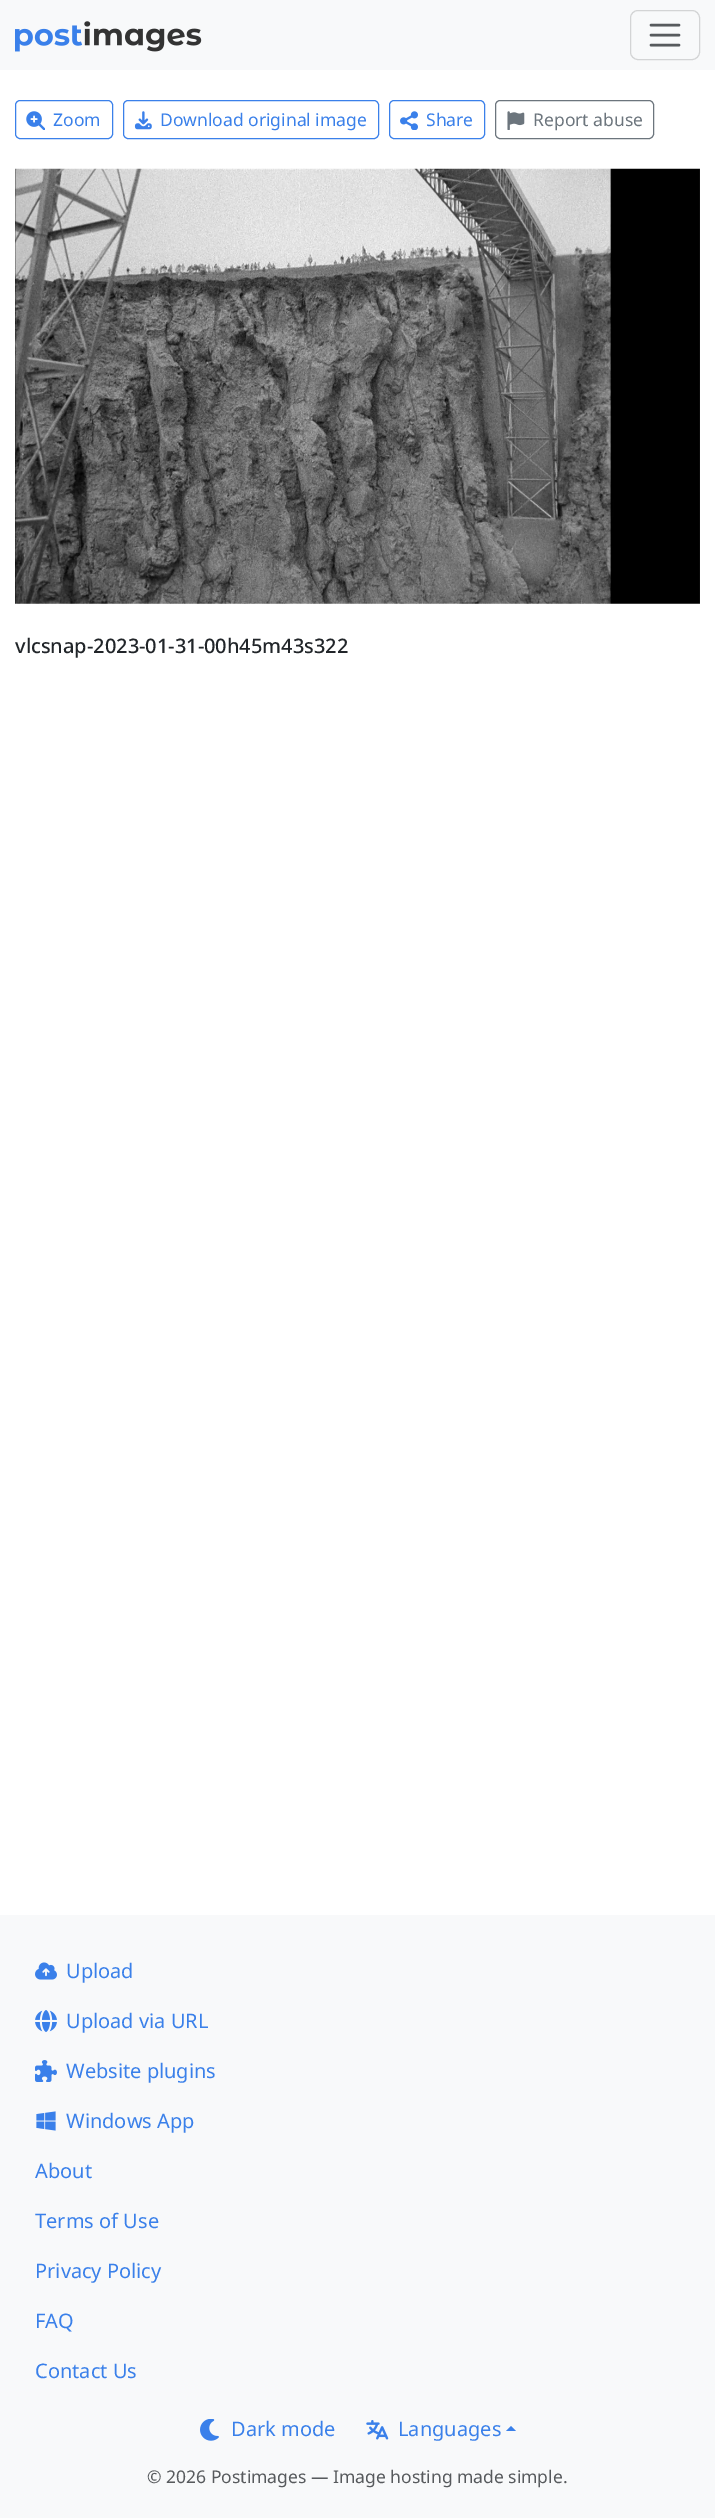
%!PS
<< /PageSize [715 2518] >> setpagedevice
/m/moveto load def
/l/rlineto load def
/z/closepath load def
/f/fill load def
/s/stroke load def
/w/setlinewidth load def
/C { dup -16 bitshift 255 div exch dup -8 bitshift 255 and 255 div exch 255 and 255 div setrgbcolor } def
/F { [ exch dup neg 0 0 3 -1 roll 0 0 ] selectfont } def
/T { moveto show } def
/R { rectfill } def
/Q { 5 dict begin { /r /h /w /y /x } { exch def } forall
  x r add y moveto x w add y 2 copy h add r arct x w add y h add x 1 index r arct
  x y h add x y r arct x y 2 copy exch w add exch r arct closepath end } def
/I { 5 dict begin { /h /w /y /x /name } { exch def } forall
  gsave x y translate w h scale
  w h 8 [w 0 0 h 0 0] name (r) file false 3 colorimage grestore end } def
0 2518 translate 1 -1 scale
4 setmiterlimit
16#FFFFFF C
0 0 715 2518 R
16#F8F9FA C
0 0 715 70 R
(1.rgb) 15 21 187 31 I
16#D3D4D5 C
630.5 10.5 69 49 7.5 Q s
16#575A5D C
2.5 w
1 setlinecap
651 25 m 28 0 l 651 35 m 28 0 l 651 45 m 28 0 l s
16#3A80EA C
1 w
0 setlinecap
15.5 100.5 97 38 4.5 Q s
(2.rgb) 26 111 19 19 I
/NotoSans-Regular 17.5 F
(Zoom) 53 126 T
123.5 100.5 255 38 4.5 Q s
(3.rgb) 134 111 18 19 I
(Download original image) 160 126 T
389.5 100.5 95 38 4.5 Q s
(4.rgb) 400 111 18 19 I
(Share) 426 126 T
16#6C757D C
495.5 100.5 158 38 4.5 Q s
(5.rgb) 507 111 18 19 I
(Report abuse) 533 126 T
(6.rgb) 15 168 685 436 I
/NotoSans-Medium 20 F
16#212529 C
(vlcsnap-2023-01-31-00h45m43s322) 15 653 T
16#F8F9FA C
0 1915 715 603 R
(7.rgb) 35 1962 22 18 I
/NotoSans-Regular 20 F
16#3A80EA C
(Upload) 66 1978 T
(8.rgb) 35 2010 22 22 I
(Upload via URL) 66 2028 T
(9.rgb) 35 2060 22 22 I
(Website plugins) 66 2078 T
(10.rgb) 36 2111 20 20 I
(Windows App) 66 2128 T
(About) 35 2178 T
(Terms of Use) 35 2228 T
(Privacy Policy) 35 2278 T
(FAQ) 35 2328 T
(Contact Us) 35 2378 T
(11.rgb) 200 2419 19 22 I
(Dark mode) 231 2436 T
(12.rgb) 366 2420 23 20 I
(Languages) 398 2436 T
516 2431 m -10 0 l 5 -5 l z f
/NotoSans-Regular 17.5 F
16#575A5D C
(© 2026 Postimages — Image hosting made simple.) 147 2483 T
showpage
